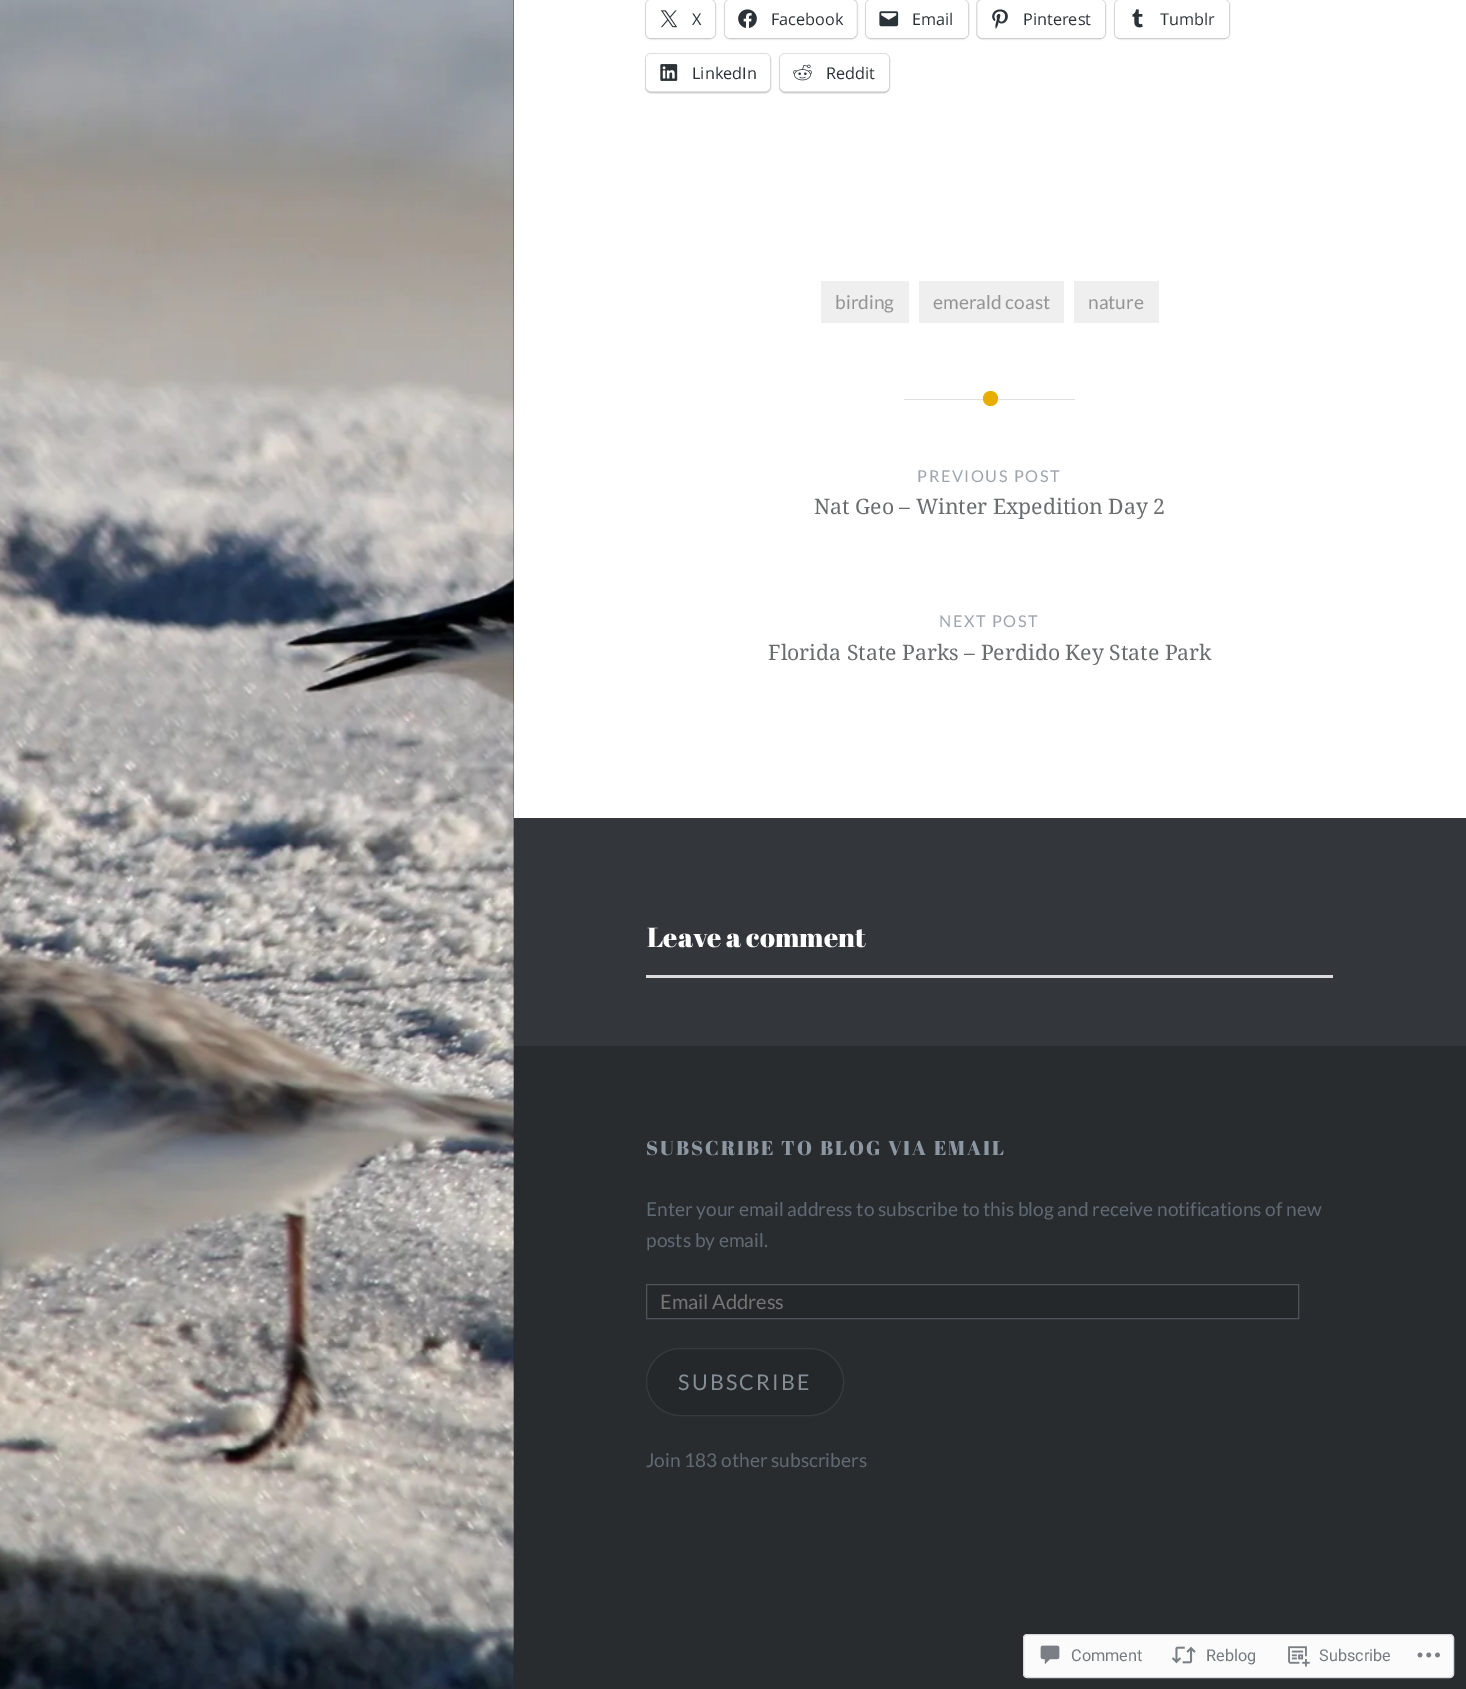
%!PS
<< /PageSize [1466 1689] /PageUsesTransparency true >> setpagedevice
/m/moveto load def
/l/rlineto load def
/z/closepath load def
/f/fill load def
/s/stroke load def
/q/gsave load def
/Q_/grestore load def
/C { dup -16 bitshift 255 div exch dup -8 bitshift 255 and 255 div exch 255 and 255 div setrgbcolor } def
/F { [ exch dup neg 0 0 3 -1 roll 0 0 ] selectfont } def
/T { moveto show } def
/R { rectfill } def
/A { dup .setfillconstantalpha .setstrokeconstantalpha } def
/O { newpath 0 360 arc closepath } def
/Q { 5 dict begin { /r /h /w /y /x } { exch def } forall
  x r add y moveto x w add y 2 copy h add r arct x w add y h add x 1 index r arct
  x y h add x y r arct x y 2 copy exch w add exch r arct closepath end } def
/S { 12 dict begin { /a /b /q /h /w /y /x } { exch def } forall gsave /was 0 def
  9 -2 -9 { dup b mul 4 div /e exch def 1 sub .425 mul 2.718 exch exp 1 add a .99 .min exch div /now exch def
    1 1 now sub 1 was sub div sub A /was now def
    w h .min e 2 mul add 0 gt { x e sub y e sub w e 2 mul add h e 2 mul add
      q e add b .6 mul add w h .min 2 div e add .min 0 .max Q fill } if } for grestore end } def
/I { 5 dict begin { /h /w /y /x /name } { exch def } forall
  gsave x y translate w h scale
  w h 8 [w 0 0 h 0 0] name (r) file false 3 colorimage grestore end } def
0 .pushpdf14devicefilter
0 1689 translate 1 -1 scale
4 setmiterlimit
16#242629 C
0 0 1466 1689 R
16#FFFFFF C
514 0 952 818 R
(1.rgb) 0 0 514 1689 I
16#E0E0E0 C
645.5 -.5 70 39 5.5 Q s
16#000000 C
646 1 69 38 5 1 .12 S
16#FFFFFF C
646 0 69 38 5 Q f
(2.rgb) 660 10 18 18 I
/OpenSans-Regular 16.25 F
16#2C3338 C
(X) 692 25 T
16#E0E0E0 C
724.5 -.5 133 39 5.5 Q s
16#000000 C
725 1 131 38 5 1 .12 S
16#FFFFFF C
725 0 131 38 5 Q f
(3.rgb) 738 9 19 19 I
16#2C3338 C
(Facebook) 771 25 T
16#E0E0E0 C
865.5 -.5 103 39 5.5 Q s
16#000000 C
866 1 102 38 5 1 .12 S
16#FFFFFF C
866 0 102 38 5 Q f
(4.rgb) 879 11 20 16 I
16#2C3338 C
(Email) 912 25 T
16#E0E0E0 C
976.5 -.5 129 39 5.5 Q s
16#000000 C
978 1 127 38 5 1 .12 S
16#FFFFFF C
978 0 127 38 5 Q f
(5.rgb) 992 9 16 20 I
16#2C3338 C
(Pinterest) 1023 25 T
16#E0E0E0 C
1114.5 -.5 115 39 5.5 Q s
16#000000 C
1115 1 114 38 5 1 .12 S
16#FFFFFF C
1115 0 114 38 5 Q f
(6.rgb) 1132 9 11 19 I
16#2C3338 C
(Tumblr) 1160 25 T
16#E0E0E0 C
645.5 53.5 125 39 5.5 Q s
16#000000 C
646 55 124 38 5 1 .12 S
16#FFFFFF C
646 54 124 37 5 Q f
(7.rgb) 660 64 18 17 I
16#2C3338 C
(LinkedIn) 692 79 T
16#E0E0E0 C
779.5 53.5 110 39 5.5 Q s
16#000000 C
780 55 109 38 5 1 .12 S
16#FFFFFF C
780 54 109 37 5 Q f
(8.rgb) 793 64 19 17 I
16#2C3338 C
(Reddit) 826 79 T
16#EFEFEF C
821 281 88 42 R
/Lato-Regular 19.1 F
16#949494 C
(birding) 835 309 T
16#EFEFEF C
919 281 145 42 R
16#949494 C
(emerald coast) 933 309 T
16#EFEFEF C
1074 281 85 42 R
16#949494 C
(nature) 1088 309 T
16#E0E0E0 C
904 399 171 1 R
16#E7AE01 C
990.5 398.5 7.5 O f
/Lato-Regular 16.25 F
16#9DA5AD C
917 482 m 1.6 0 (PREVIOUS POST) ashow
/NotoSerif-Regular 21.25 F
16#6A6C6E C
(Nat Geo – Winter Expedition Day 2) 814 514 T
/Lato-Regular 16.25 F
16#9DA5AD C
939 627 m 1.6 0 (NEXT POST) ashow
/NotoSerif-Regular 21.25 F
16#6A6C6E C
(Florida State Parks – Perdido Key State Park) 768 660 T
16#33373B C
514 818 952 228 R
/AbrilFatface-Regular 27.5 F
16#FFFFFF C
(Leave a comment) 647 947 T
16#DCDCDE C
646 975 687 3 R
16#292C2F C
514 1046 952 643 R
/AbrilFatface-Regular 20 F
16#8C97A2 C
646 1155 m 2 0 (SUBSCRIBE TO BLOG VIA EMAIL) ashow
/Lato-Regular 19.1 F
16#616A74 C
(Enter your email address to subscribe to this blog and receive notifications of new) 646 1216 T
(posts by email.) 646 1247 T
16#25282A C
646.5 1284.5 m 652 0 l 0 34 l -652 0 l z q f Q_
16#4D545B C
s
/Lato-Regular 20 F
16#757575 C
(Email Address) 660 1309 T
16#25282A C
646.5 1348.5 197 67 33.5 Q q f Q_
16#363B40 C
s
/Lato-Regular 21.5 F
16#858D95 C
678 1390 m 2.25 0 (SUBSCRIBE) ashow
/Lato-Regular 19.1 F
16#616A74 C
(Join 183 other subscribers) 646 1467 T
16#FBFBFB C
1023.5 1634.5 430 43 3.5 Q q f Q_
16#D8D8DB C
s
(9.rgb) 1040 1645 20 20 I
/Roboto-Regular 16.25 F
16#767A80 C
(Comment) 1071 1661 T
(10.rgb) 1171 1646 25 18 I
(Reblog) 1206 1661 T
(11.rgb) 1288 1646 22 21 I
(Subscribe) 1319 1661 T
(12.rgb) 1417 1652 23 6 I
.poppdf14devicefilter showpage
